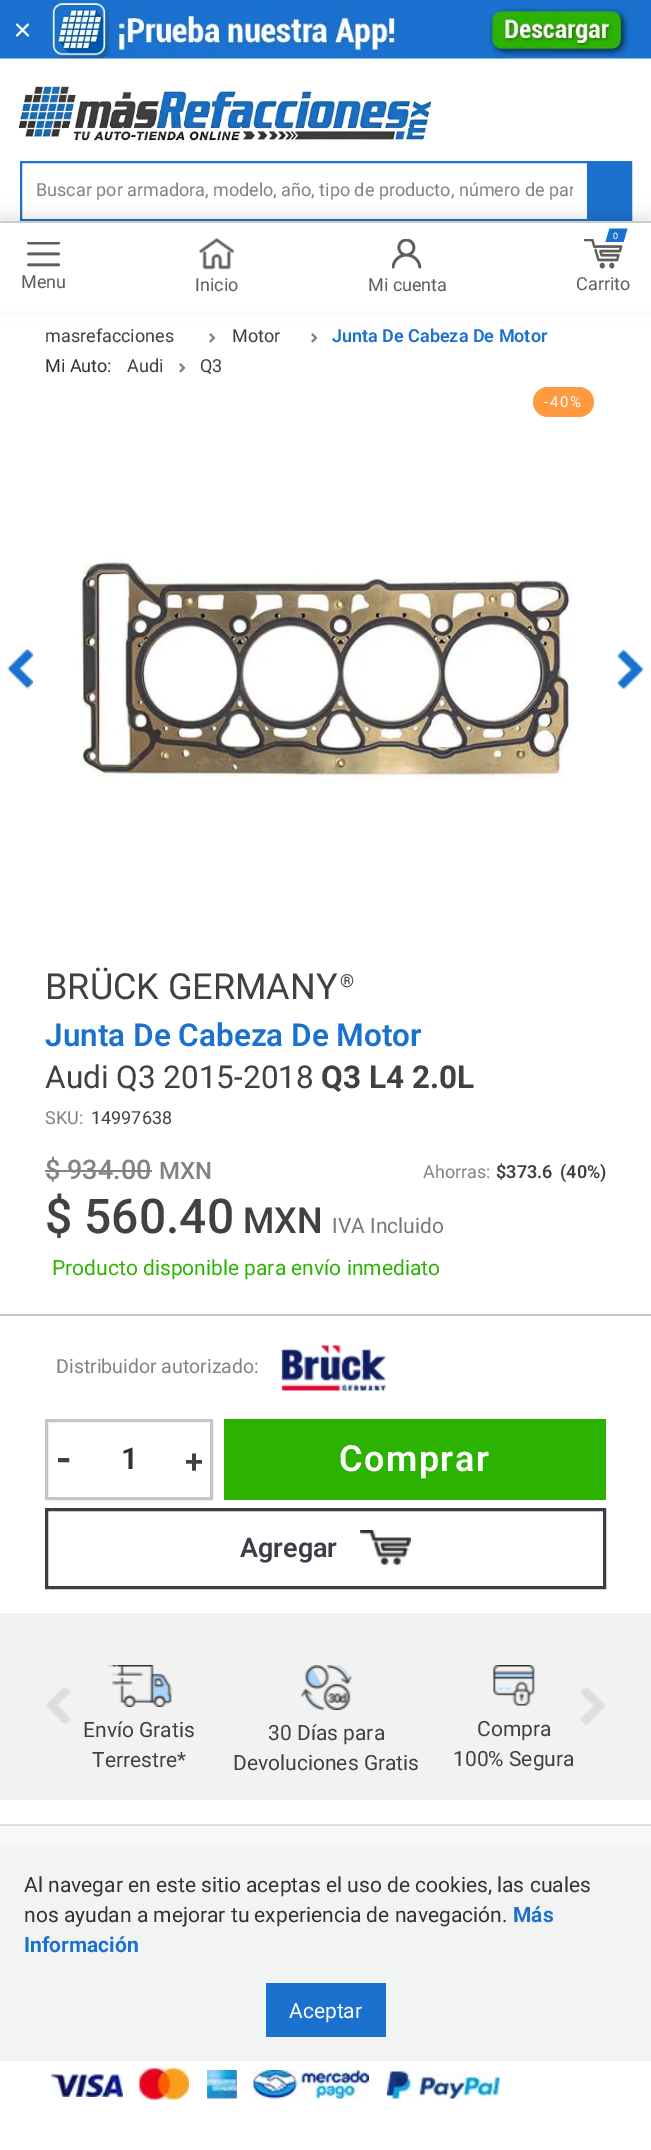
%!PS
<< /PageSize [651 2150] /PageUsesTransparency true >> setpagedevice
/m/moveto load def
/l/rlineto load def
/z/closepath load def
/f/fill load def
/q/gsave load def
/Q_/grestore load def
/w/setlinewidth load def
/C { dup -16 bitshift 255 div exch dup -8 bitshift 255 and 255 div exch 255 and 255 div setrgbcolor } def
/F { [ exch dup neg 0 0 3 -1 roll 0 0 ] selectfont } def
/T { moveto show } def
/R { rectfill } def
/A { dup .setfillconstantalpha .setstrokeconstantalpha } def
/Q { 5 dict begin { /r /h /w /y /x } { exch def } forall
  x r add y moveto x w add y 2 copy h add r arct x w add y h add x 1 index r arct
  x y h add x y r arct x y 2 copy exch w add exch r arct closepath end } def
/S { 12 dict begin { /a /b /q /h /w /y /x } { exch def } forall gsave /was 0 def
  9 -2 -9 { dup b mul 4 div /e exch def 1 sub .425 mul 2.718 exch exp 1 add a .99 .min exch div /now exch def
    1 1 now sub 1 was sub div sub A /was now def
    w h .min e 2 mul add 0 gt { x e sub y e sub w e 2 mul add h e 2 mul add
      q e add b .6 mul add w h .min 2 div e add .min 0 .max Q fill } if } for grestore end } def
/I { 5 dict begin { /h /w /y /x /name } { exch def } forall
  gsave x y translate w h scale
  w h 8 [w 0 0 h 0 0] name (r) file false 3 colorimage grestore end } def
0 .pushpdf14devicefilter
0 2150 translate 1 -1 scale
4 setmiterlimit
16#FFFFFF C
0 0 651 2150 R
(1.rgb) 0 0 651 59 I
(2.rgb) 15 23 14 14 I
(3.rgb) 18 86 414 56 I
16#1B71CE C
2 w
21 162 610 58 rectstroke
q
36 180 537 21 rectclip
/Roboto-Regular 18 F
16#838383 C
(Buscar por armadora, modelo, año, tipo de producto, número de par) 36 196 T
Q_
16#1D70CD C
587 163 43 56 R
16#000000 C
0 215 651 90 0 7.5 .1 S
16#FFFFFF C
0 223 651 88 R
16#CCCCCC C
0 221 651 2 R
(4.rgb) 27 242 34 25 I
/Roboto-Regular 18 F
16#5E5E5D C
(Menu) 21 288 T
(5.rgb) 199 238 36 32 I
(Inicio) 195 291 T
(6.rgb) 392 239 30 30 I
(Mi cuenta) 368 291 T
(7.rgb) 584 239 39 30 I
16#1B71CE C
609.5 228.5 m 18 0 l -4 13.5 l -18 0 l z f
/Roboto-Regular 9 F
16#FFFFFF C
(0) 613 239 T
/Roboto-Regular 18 F
16#5E5E5D C
(Carrito) 576 290 T
16#414141 C
(masrefacciones) 45 342 T
(8.rgb) 209 333 7 10 I
(Motor) 232 342 T
(8.rgb) 311 333 7 10 I
/Roboto-SemiBold 18 F
16#1B71CE C
(Junta De Cabeza De Motor) 332 342 T
/Roboto-Regular 18 F
16#333333 C
(Mi Auto:) 45 372 T
16#414141 C
(Audi) 127 372 T
(8.rgb) 179 363 7 10 I
(Q3) 200 372 T
16#FF9A41 C
533 387 61 30 15 Q f
/Roboto-Regular 15 F
16#FFFFFF C
544 407 m 1.5 0 (-40%) ashow
(9.rgb) 7 649 26 40 I
(10.rgb) 79 556 494 223 I
(11.rgb) 618 649 26 40 I
/Roboto-Regular 36 F
16#414141 C
(BRÜCK GERMANY) 45 999 T
/Roboto-Regular 18 F
(®) 340 987 T
/Roboto-SemiBold 31.5 F
16#1B71CE C
(Junta De Cabeza De Motor) 45 1046 T
/Roboto-Regular 31.5 F
16#414141 C
(Audi Q3 2015-2018) 45 1088 T
/Roboto-Bold 31.5 F
(Q3 L4 2.0L) 321 1088 T
/Roboto-Regular 18 F
16#838383 C
(SKU:) 45 1124 T
16#414141 C
(14997638) 91 1124 T
/Roboto-Medium 27 F
16#838383 C
($ 934.00) 45 1179 T
45 1170 107 2 R
/Roboto-Medium 24 F
(MXN) 159 1179 T
/Roboto-Regular 18 F
(Ahorras:) 423 1178 T
/Roboto-SemiBold 18 F
16#414141 C
($373.6) 496 1178 T
(\(40%\)) 560 1178 T
/Roboto-Medium 48 F
($ 560.40) 45 1233 T
/Roboto-Medium 36 F
(MXN) 243 1233 T
/Roboto-Regular 21 F
16#777777 C
(IVA Incluido) 332 1233 T
16#2CB201 C
(Producto disponible para envío inmediato) 52 1275 T
16#C5C5C5 C
0 1314 651 2 R
/Roboto-Regular 19.5 F
16#838383 C
(Distribuidor autorizado:) 56 1373 T
(12.rgb) 281 1345 105 46 I
16#C5C5C5 C
3 w
46.5 1420.5 165 78 rectstroke
/Roboto-SemiBold 42 F
16#414141 C
(-) 56 1473 T
/Roboto-SemiBold 30 F
16#333333 C
(1) 121 1469 T
/Roboto-SemiBold 33 F
16#414141 C
(+) 185 1473 T
16#2CB201 C
224 1419 382 81 R
/Roboto-SemiBold 36 F
16#FFFFFF C
339 1471 m 1.5 0 (Comprar) ashow
16#393E47 C
46.5 1509.5 558 78 rectstroke
/Roboto-SemiBold 27 F
(Agregar) 240 1557 T
(13.rgb) 360 1530 51 35 I
16#F2F2F2 C
0 1613 651 187 R
(14.rgb) 46 1687 25 37 I
(15.rgb) 580 1687 25 38 I
(16.rgb) 107 1665 65 42 I
/Roboto-Regular 21 F
16#414141 C
(Envío Gratis) 83 1737 T
(Terrestre*) 92 1767 T
(17.rgb) 301 1665 51 45 I
(30 Días para) 268 1740 T
(Devoluciones Gratis) 233 1770 T
(18.rgb) 493 1665 42 41 I
(Compra) 477 1736 T
(100% Segura) 453 1766 T
16#F8F8F8 C
0 1826 651 19 R
16#DEDEDE C
0 1824 651 2 R
(19.rgb) 51 2074 72 23 I
(20.rgb) 139 2068 50 32 I
(21.rgb) 207 2070 30 29 I
(22.rgb) 253 2070 116 29 I
(23.rgb) 387 2071 113 28 I
16#F2F3F3 C
0 1845 651 216 R
16#333333 C
(Al navegar en este sitio aceptas el uso de cookies, las cuales) 24 1892 T
(nos ayudan a mejorar tu experiencia de navegación.) 24 1922 T
/Roboto-Bold 21 F
16#1B71CE C
(Más) 513 1922 T
(Información) 24 1952 T
266 1983 120 54 R
/Roboto-Regular 21 F
16#FFFFFF C
(Aceptar) 289 2018 T
.poppdf14devicefilter showpage
